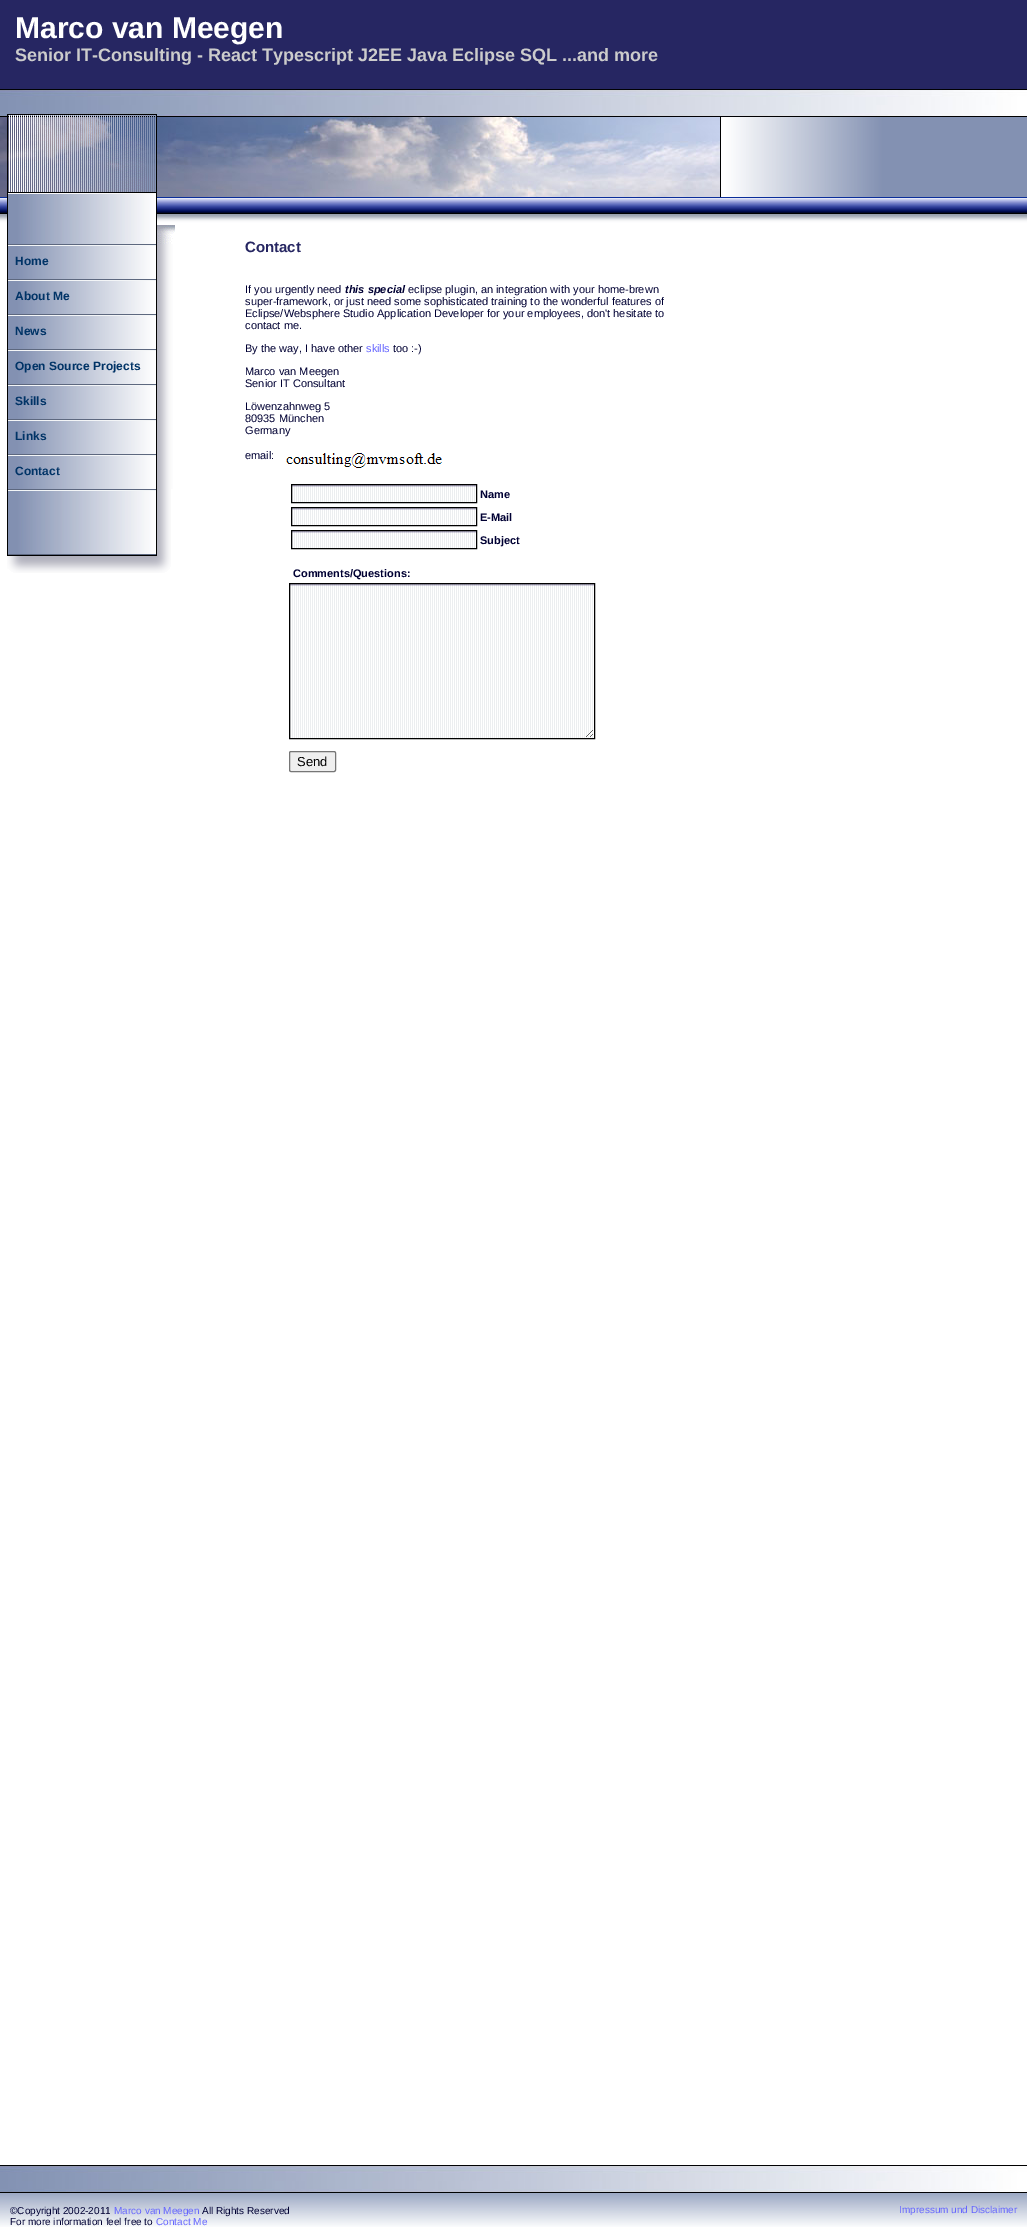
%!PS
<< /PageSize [1027 2238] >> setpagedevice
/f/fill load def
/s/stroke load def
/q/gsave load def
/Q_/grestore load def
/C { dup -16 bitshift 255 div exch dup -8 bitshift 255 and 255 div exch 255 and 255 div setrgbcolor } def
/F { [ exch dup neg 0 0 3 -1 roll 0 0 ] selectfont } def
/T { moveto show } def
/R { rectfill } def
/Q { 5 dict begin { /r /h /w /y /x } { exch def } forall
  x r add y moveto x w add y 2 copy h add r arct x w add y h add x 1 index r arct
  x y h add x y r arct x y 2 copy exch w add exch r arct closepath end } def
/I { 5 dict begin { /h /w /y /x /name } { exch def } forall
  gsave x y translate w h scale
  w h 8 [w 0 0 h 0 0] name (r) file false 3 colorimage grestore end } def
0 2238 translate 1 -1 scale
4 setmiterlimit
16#FFFFFF C
0 0 1027 2238 R
16#262662 C
0 0 1027 89 R
/LiberationSans-Bold 30 F
16#FFFFFF C
(Marco van Meegen) 15 38 T
/LiberationSans-Bold 18 F
16#CCCCCC C
(Senior IT-Consulting - React Typescript J2EE Java Eclipse SQL ...and more) 15 61 T
(1.rgb) 0 89 1027 28 I
(2.rgb) 0 117 720 80 I
(3.rgb) 720 117 307 80 I
(4.rgb) 0 197 1027 26 I
(5.rgb) 7 114 168 130 I
(6.rgb) 7 244 168 35 I
/LiberationSans-Bold 12 F
16#003366 C
(Home) 15 265 T
(6.rgb) 7 279 168 35 I
(About Me) 15 300 T
(6.rgb) 7 314 168 35 I
(News) 15 335 T
(6.rgb) 7 349 168 35 I
(Open Source Projects) 15 370 T
(6.rgb) 7 384 168 35 I
(Skills) 15 405 T
(6.rgb) 7 419 168 35 I
(Links) 15 440 T
(6.rgb) 7 454 168 35 I
(Contact) 15 475 T
(7.rgb) 7 489 164 84 I
/LiberationSans-Bold 15 F
16#262662 C
(Contact) 245 252 T
/LiberationSans-Regular 11 F
16#000033 C
(If you urgently need) 245 293 T
/LiberationSans-BoldItalic 11 F
(this special) 345 293 T
/LiberationSans-Regular 11 F
(eclipse plugin, an integration with your home-brewn) 408 293 T
(super-framework, or just need some sophisticated training to the wonderful features of) 245 305 T
(Eclipse/Websphere Studio Application Developer for your employees, don't hesitate to) 245 317 T
(contact me.) 245 329 T
(By the way, I have other) 245 352 T
16#6666FF C
(skills) 366 352 T
16#000033 C
(too :-\)) 393 352 T
(Marco van Meegen) 245 375 T
(Senior IT Consultant) 245 387 T
(Löwenzahnweg 5) 245 410 T
(80935 München) 245 422 T
(Germany) 245 434 T
(email:) 245 459 T
(8.rgb) 286 453 156 15 I
(9.rgb) 292 485 184 17 I
16#000000 C
291.5 484.5 185 18 rectstroke
/LiberationSans-Bold 11 F
16#000033 C
(Name) 480 498 T
(9.rgb) 292 508 184 17 I
16#000000 C
291.5 507.5 185 18 rectstroke
16#000033 C
(E-Mail) 480 521 T
(9.rgb) 292 531 184 17 I
16#000000 C
291.5 530.5 185 18 rectstroke
16#000033 C
(Subject) 480 544 T
(Comments/Questions:) 293 577 T
(10.rgb) 290 584 304 154 I
16#000000 C
289.5 583.5 305 155 rectstroke
16#EFEFEF C
289.5 751.5 46 20 1.5 Q q f Q_
16#767676 C
s
/LiberationSans-Regular 13 F
16#000000 C
(Send) 297 766 T
(1.rgb) 0 2165 1027 28 I
(11.rgb) 0 2193 1027 34 I
/LiberationSans-Regular 10 F
16#000033 C
(©Copyright 2002-2011) 10 2214 T
16#6666FF C
(Marco van Meegen) 114 2214 T
16#000033 C
(All Rights Reserved) 202 2214 T
(For more information feel free to) 10 2225 T
16#6666FF C
(Contact Me) 156 2225 T
(Impressum und Disclaimer) 899 2213 T
showpage
